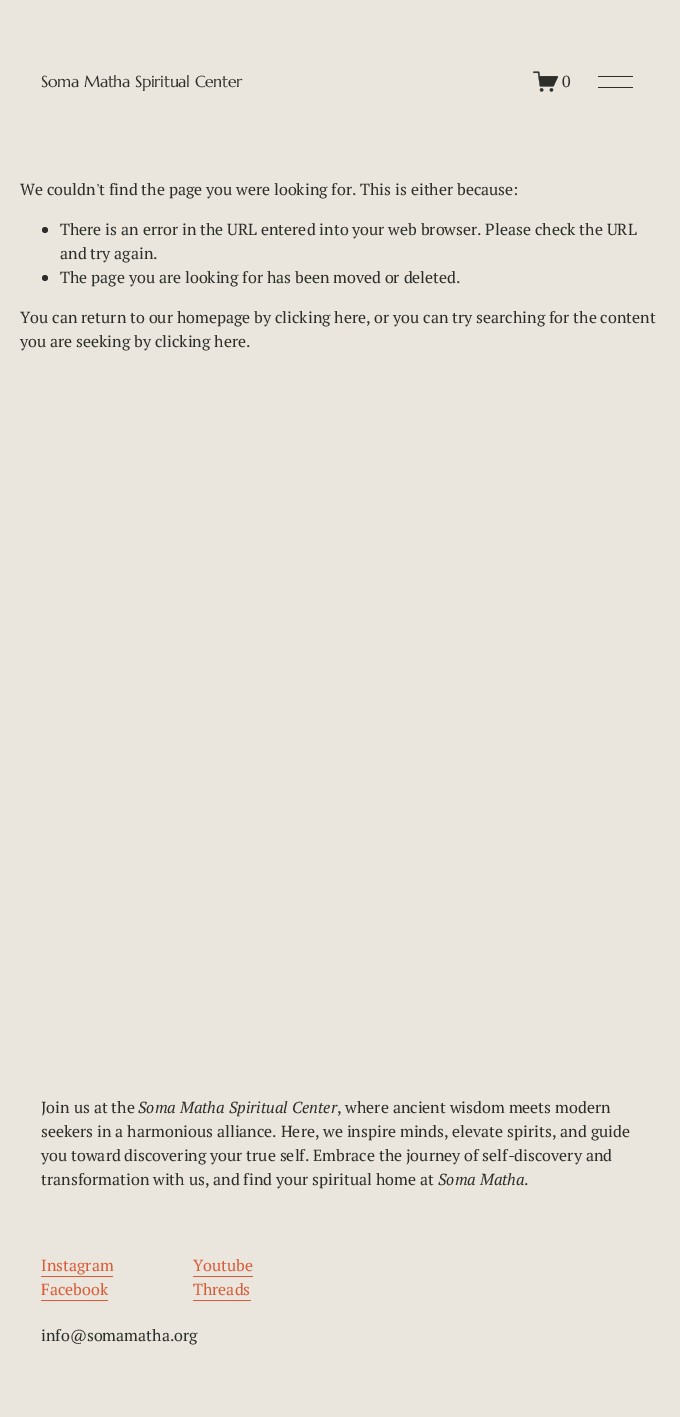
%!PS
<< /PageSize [680 1417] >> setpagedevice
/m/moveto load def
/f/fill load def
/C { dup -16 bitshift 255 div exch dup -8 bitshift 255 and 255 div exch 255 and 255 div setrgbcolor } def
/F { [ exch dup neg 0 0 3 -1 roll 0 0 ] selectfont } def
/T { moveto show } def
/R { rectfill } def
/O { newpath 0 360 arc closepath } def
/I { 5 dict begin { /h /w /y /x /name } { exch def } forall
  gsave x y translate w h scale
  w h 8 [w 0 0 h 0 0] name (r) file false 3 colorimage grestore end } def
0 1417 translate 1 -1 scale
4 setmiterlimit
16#EAE6DD C
0 0 680 1417 R
/Marcellus-Regular 16 F
16#2D2D2A C
41 87 m -.3 0 (Soma Matha Spiritual Center) ashow
(1.rgb) 533 71 25 21 I
/PTSerif-Regular 16 F
(0) 562 87 T
598 76 35 1 R
598 87 35 1 R
(We couldn't find the page you were looking for. This is either because:) 20 195 T
45 230 3 O f
(There is an error in the URL entered into your web browser. Please check the URL) 60 235 T
(and try again.) 60 259 T
45 278 3 O f
(The page you are looking for has been moved or deleted.) 60 283 T
(You can return to our homepage by clicking here, or you can try searching for the content) 20 323 T
(you are seeking by clicking here.) 20 347 T
(Join us at the) 41 1113 T
/PTSerif-Italic 16 F
(Soma Matha Spiritual Center) 138 1113 T
/PTSerif-Regular 16 F
(, where ancient wisdom meets modern) 337 1113 T
(seekers in a harmonious alliance. Here, we inspire minds, elevate spirits, and guide) 41 1137 T
(you toward discovering your true self. Embrace the journey of self-discovery and) 41 1161 T
(transformation with us, and find your spiritual home at) 41 1185 T
/PTSerif-Italic 16 F
(Soma Matha) 438 1185 T
/PTSerif-Regular 16 F
(.) 524 1185 T
16#DA5B37 C
41 1276 72 1 R
(Instagram) 41 1271 T
41 1300 67 1 R
(Facebook) 41 1295 T
193 1276 60 1 R
(Youtube) 193 1271 T
193 1300 58 1 R
(Threads) 193 1295 T
16#2D2D2A C
(info@somamatha.org) 41 1341 T
showpage
